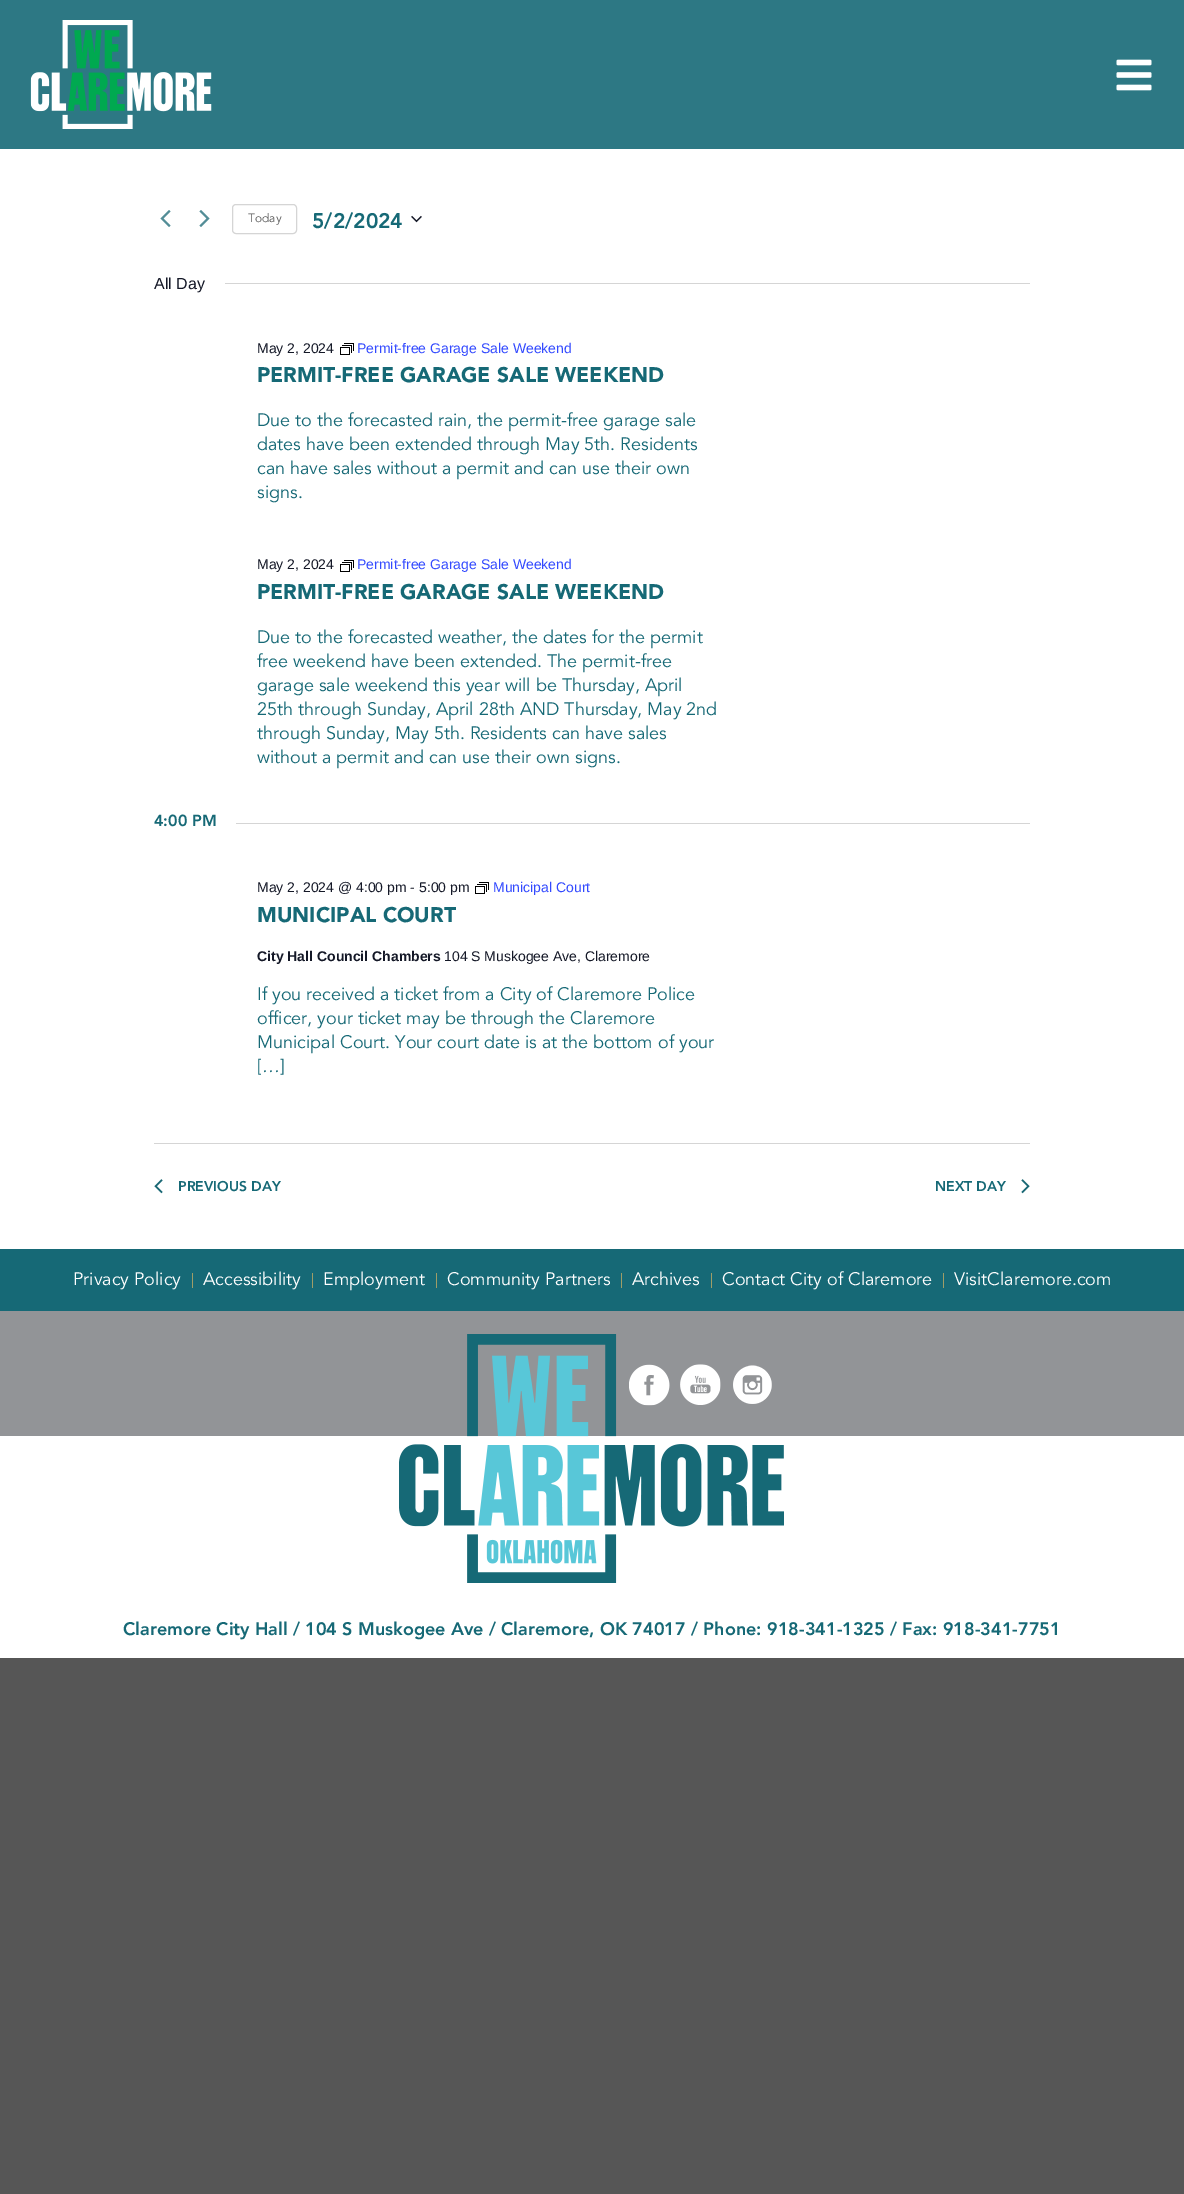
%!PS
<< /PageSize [1184 2194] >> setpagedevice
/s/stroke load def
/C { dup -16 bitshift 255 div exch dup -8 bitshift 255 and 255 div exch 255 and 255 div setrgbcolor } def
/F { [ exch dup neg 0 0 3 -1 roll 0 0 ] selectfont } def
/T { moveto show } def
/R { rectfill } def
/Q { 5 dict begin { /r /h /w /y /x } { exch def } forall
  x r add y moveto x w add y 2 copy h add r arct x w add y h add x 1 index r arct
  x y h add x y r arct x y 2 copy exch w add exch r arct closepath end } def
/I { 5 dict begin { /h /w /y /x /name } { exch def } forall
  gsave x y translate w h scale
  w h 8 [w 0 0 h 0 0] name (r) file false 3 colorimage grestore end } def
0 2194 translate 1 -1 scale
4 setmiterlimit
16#565656 C
0 0 1184 2194 R
16#FFFFFF C
0 149 1184 1509 R
16#2D7884 C
0 0 1184 149 R
(1.rgb) 30 20 182 109 I
(2.rgb) 1116 59 36 32 I
(3.rgb) 160 210 11 17 I
(4.rgb) 199 210 11 17 I
16#D5D5D5 C
232.5 204.5 64 29 3.5 Q s
/Avenir-Regular 12 F
16#5D5D5D C
(Today) 248 222 T
/Avenir-Black 21 F
16#166976 C
(5/2/2024) 312 228 T
(5.rgb) 411 215 11 8 I
/LiberationSans-Regular 16 F
16#141827 C
(All Day) 154 289 T
16#D5D5D5 C
225 283 805 1 R
/LiberationSans-Regular 14 F
16#141827 C
(May 2, 2024) 257 353 T
(6.rgb) 340 343 14 12 I
16#334AFF C
(Permit-free Garage Sale Weekend) 357 353 T
/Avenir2-Black 21 F
16#166976 C
(PERMIT-FREE GARAGE SALE WEEKEND) 257 382 T
/Avenir-Regular 18 F
(Due to the forecasted rain, the permit-free garage sale) 257 426 T
(dates have been extended through May 5th. Residents) 257 450 T
(can have sales without a permit and can use their own) 257 474 T
(signs.) 257 498 T
/LiberationSans-Regular 14 F
16#141827 C
(May 2, 2024) 257 569 T
(6.rgb) 340 560 14 12 I
16#334AFF C
(Permit-free Garage Sale Weekend) 357 569 T
/Avenir2-Black 21 F
16#166976 C
(PERMIT-FREE GARAGE SALE WEEKEND) 257 599 T
/Avenir-Regular 18 F
(Due to the forecasted weather, the dates for the permit) 257 643 T
(free weekend have been extended. The permit-free) 257 667 T
(garage sale weekend this year will be Thursday, April) 257 691 T
(25th through Sunday, April 28th AND Thursday, May 2nd) 257 715 T
(through Sunday, May 5th. Residents can have sales) 257 739 T
(without a permit and can use their own signs.) 257 763 T
/Avenir-Black 16 F
(4:00 PM) 154 826 T
16#D5D5D5 C
236 823 794 1 R
/LiberationSans-Regular 14 F
16#141827 C
(May 2, 2024 @ 4:00 pm - 5:00 pm) 257 892 T
(6.rgb) 475 882 14 12 I
16#334AFF C
(Municipal Court) 493 892 T
/Avenir2-Black 21 F
16#166976 C
(MUNICIPAL COURT) 257 922 T
/LiberationSans-Bold 14 F
16#141827 C
(City Hall Council Chambers) 257 961 T
/LiberationSans-Regular 14 F
(104 S Muskogee Ave, Claremore) 444 961 T
/Avenir-Regular 18 F
16#166976 C
(If you received a ticket from a City of Claremore Police) 257 1000 T
(officer, your ticket may be through the Claremore) 257 1024 T
(Municipal Court. Your court date is at the bottom of your) 257 1048 T
([…]) 257 1072 T
16#D5D5D5 C
154 1143 876 1 R
(7.rgb) 154 1179 9 15 I
/Avenir-Black 14 F
16#166976 C
(PREVIOUS DAY) 178 1191 T
(NEXT DAY) 935 1191 T
(8.rgb) 1021 1179 9 15 I
0 1249 1184 62 R
/Avenir-Regular 18 F
16#FFFFFF C
(Privacy Policy) 73 1285 T
16#9F9D67 C
192 1273 1 15 R
16#FFFFFF C
(Accessibility) 203 1285 T
16#9F9D67 C
312 1273 1 15 R
16#FFFFFF C
(Employment) 323 1285 T
16#9F9D67 C
436 1273 1 15 R
16#FFFFFF C
(Community Partners) 447 1285 T
16#9F9D67 C
621 1273 1 15 R
16#FFFFFF C
(Archives) 632 1285 T
16#9F9D67 C
711 1273 1 15 R
16#FFFFFF C
(Contact City of Claremore) 722 1285 T
16#9F9D67 C
943 1273 1 15 R
16#FFFFFF C
(VisitClaremore.com) 954 1285 T
16#929497 C
0 1311 1184 125 R
(9.rgb) 399 1334 385 249 I
(10.rgb) 629 1364 41 42 I
(11.rgb) 680 1364 41 41 I
(12.rgb) 733 1365 39 39 I
/Avenir-Black 18 F
16#166976 C
(Claremore City Hall / 104 S Muskogee Ave / Claremore, OK 74017 / Phone: 918-341-1325 / Fax: 918-341-7751) 123 1635 T
showpage
